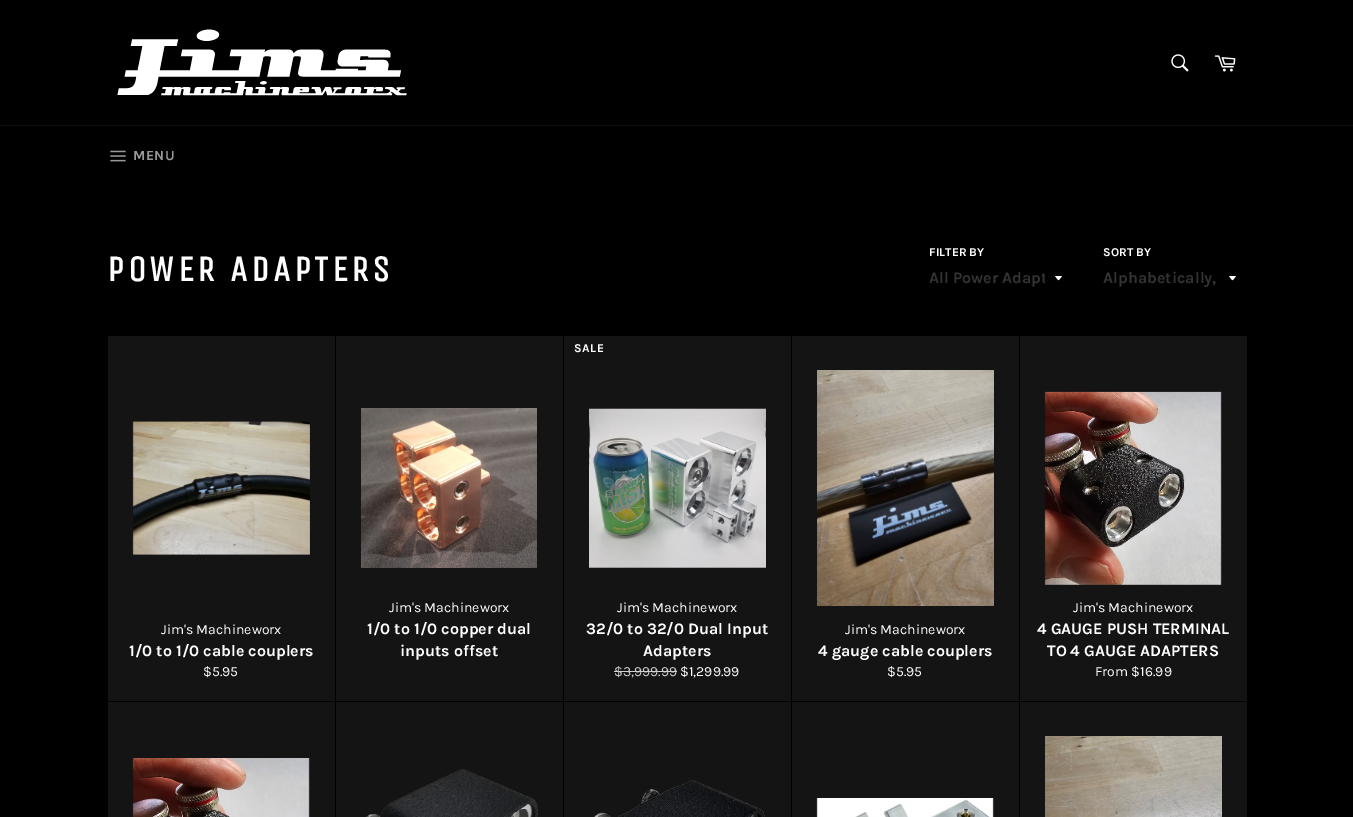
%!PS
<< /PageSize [1353 817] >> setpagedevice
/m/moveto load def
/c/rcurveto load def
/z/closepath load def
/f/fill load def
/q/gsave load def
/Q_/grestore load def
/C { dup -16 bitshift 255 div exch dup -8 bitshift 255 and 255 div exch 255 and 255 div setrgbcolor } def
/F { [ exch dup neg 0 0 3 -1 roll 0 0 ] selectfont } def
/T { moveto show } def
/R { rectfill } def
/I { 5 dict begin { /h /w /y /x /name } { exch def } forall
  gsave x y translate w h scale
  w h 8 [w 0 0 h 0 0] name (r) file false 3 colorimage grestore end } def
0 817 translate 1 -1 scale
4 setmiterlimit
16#000000 C
0 0 1353 817 R
(1.rgb) 117 29 290 67 I
(2.rgb) 1171 54 18 18 I
(3.rgb) 1214 55 22 17 I
16#0D0D0D C
0 125 1353 1 R
(4.rgb) 110 150 16 12 I
/Karla-Bold 14 F
16#999999 C
133 160 m .5 0 (MENU) ashow
/UnicaOne-Bold 36 F
16#FFFFFF C
107 281 m 3.6 0 (POWER ADAPTERS) ashow
/Karla-Bold 12 F
(FILTER BY) 929 256 T
1055 276 m 4.5 5.5 2.5 5.5 7 0 c z f
q
929 267 116 22 rectclip
/Karla-Bold 16 F
16#333333 C
(All Power Adapt) 929 283 T
Q_
(SORT BY) 1103 256 T
1229 276 m 4.5 5.5 2.5 5.5 7 0 c z f
/Karla-Bold 16 F
16#333333 C
(Alphabetically,) 1103 283 T
16#141414 C
108 336 227 365 R
(5.rgb) 132 421 178 134 I
/Karla-Regular 14 F
16#FFFFFF C
(Jim's Machineworx) 161 634 T
/Karla-Bold 16 F
(1/0 to 1/0 cable couplers) 129 656 T
/Karla-Regular 14 F
($5.95) 203 676 T
16#141414 C
336 336 227 365 R
(6.rgb) 361 408 176 160 I
16#FFFFFF C
(Jim's Machineworx) 389 612 T
/Karla-Bold 16 F
(1/0 to 1/0 copper dual) 367 634 T
(inputs offset) 400 656 T
16#141414 C
564 336 227 365 R
/Karla-Bold 12 F
16#FFFFFF C
574 352 m .5 0 (SALE) ashow
(7.rgb) 589 408 177 160 I
/Karla-Regular 14 F
(Jim's Machineworx) 617 612 T
/Karla-Bold 16 F
(32/0 to 32/0 Dual Input) 586 634 T
(Adapters) 643 656 T
/Karla-Regular 14 F
16#D0D0D0 C
($3,999.99) 614 676 T
614 671 63 1 R
16#FFFFFF C
($1,299.99) 680 676 T
16#141414 C
792 336 227 365 R
(8.rgb) 817 370 177 236 I
16#FFFFFF C
(Jim's Machineworx) 845 634 T
/Karla-Bold 16 F
(4 gauge cable couplers) 818 656 T
/Karla-Regular 14 F
($5.95) 887 676 T
16#141414 C
1020 336 227 365 R
(9.rgb) 1044 391 178 194 I
16#FFFFFF C
(Jim's Machineworx) 1073 612 T
/Karla-Bold 16 F
(4 GAUGE PUSH TERMINAL) 1037 634 T
(TO 4 GAUGE ADAPTERS) 1047 656 T
/Karla-Regular 14 F
(From $16.99) 1095 676 T
16#141414 C
108 702 227 115 R
(10.rgb) 132 758 178 59 I
336 702 227 115 R
(11.rgb) 366 769 172 48 I
564 702 227 115 R
(12.rgb) 594 780 171 37 I
792 702 227 115 R
(13.rgb) 816 798 178 19 I
1020 702 227 115 R
(14.rgb) 1045 736 177 81 I
showpage
